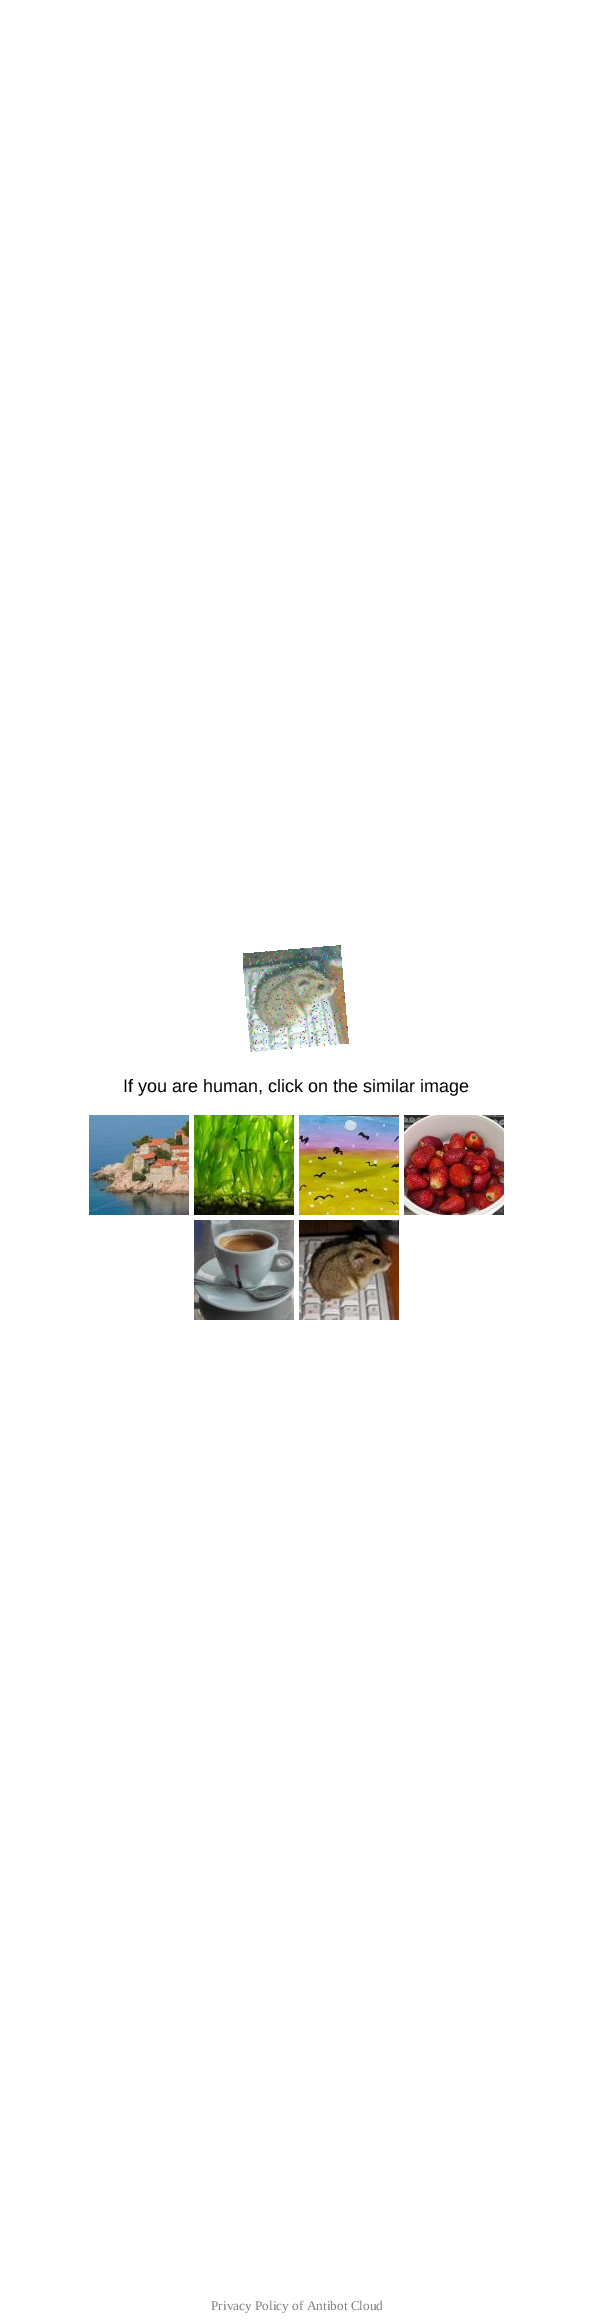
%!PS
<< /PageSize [594 2324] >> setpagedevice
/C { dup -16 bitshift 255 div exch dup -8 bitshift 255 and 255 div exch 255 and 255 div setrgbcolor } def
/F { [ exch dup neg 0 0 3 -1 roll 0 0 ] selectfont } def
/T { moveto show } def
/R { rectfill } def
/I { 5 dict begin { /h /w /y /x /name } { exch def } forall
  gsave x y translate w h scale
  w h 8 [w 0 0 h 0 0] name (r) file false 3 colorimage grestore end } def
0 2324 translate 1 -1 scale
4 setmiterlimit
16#FFFFFF C
0 0 594 2324 R
(1.rgb) 243 945 106 107 I
/LiberationSans-Regular 18 F
16#000000 C
(If you are human, click on the similar image) 123 1092 T
(2.rgb) 89 1115 100 100 I
(3.rgb) 194 1115 100 100 I
(4.rgb) 299 1115 100 100 I
(5.rgb) 404 1115 100 100 I
(6.rgb) 194 1220 100 100 I
(7.rgb) 299 1220 100 100 I
/LiberationSerif-Regular 13.3 F
16#808080 C
(Privacy Policy of Antibot Cloud) 211 2310 T
showpage
